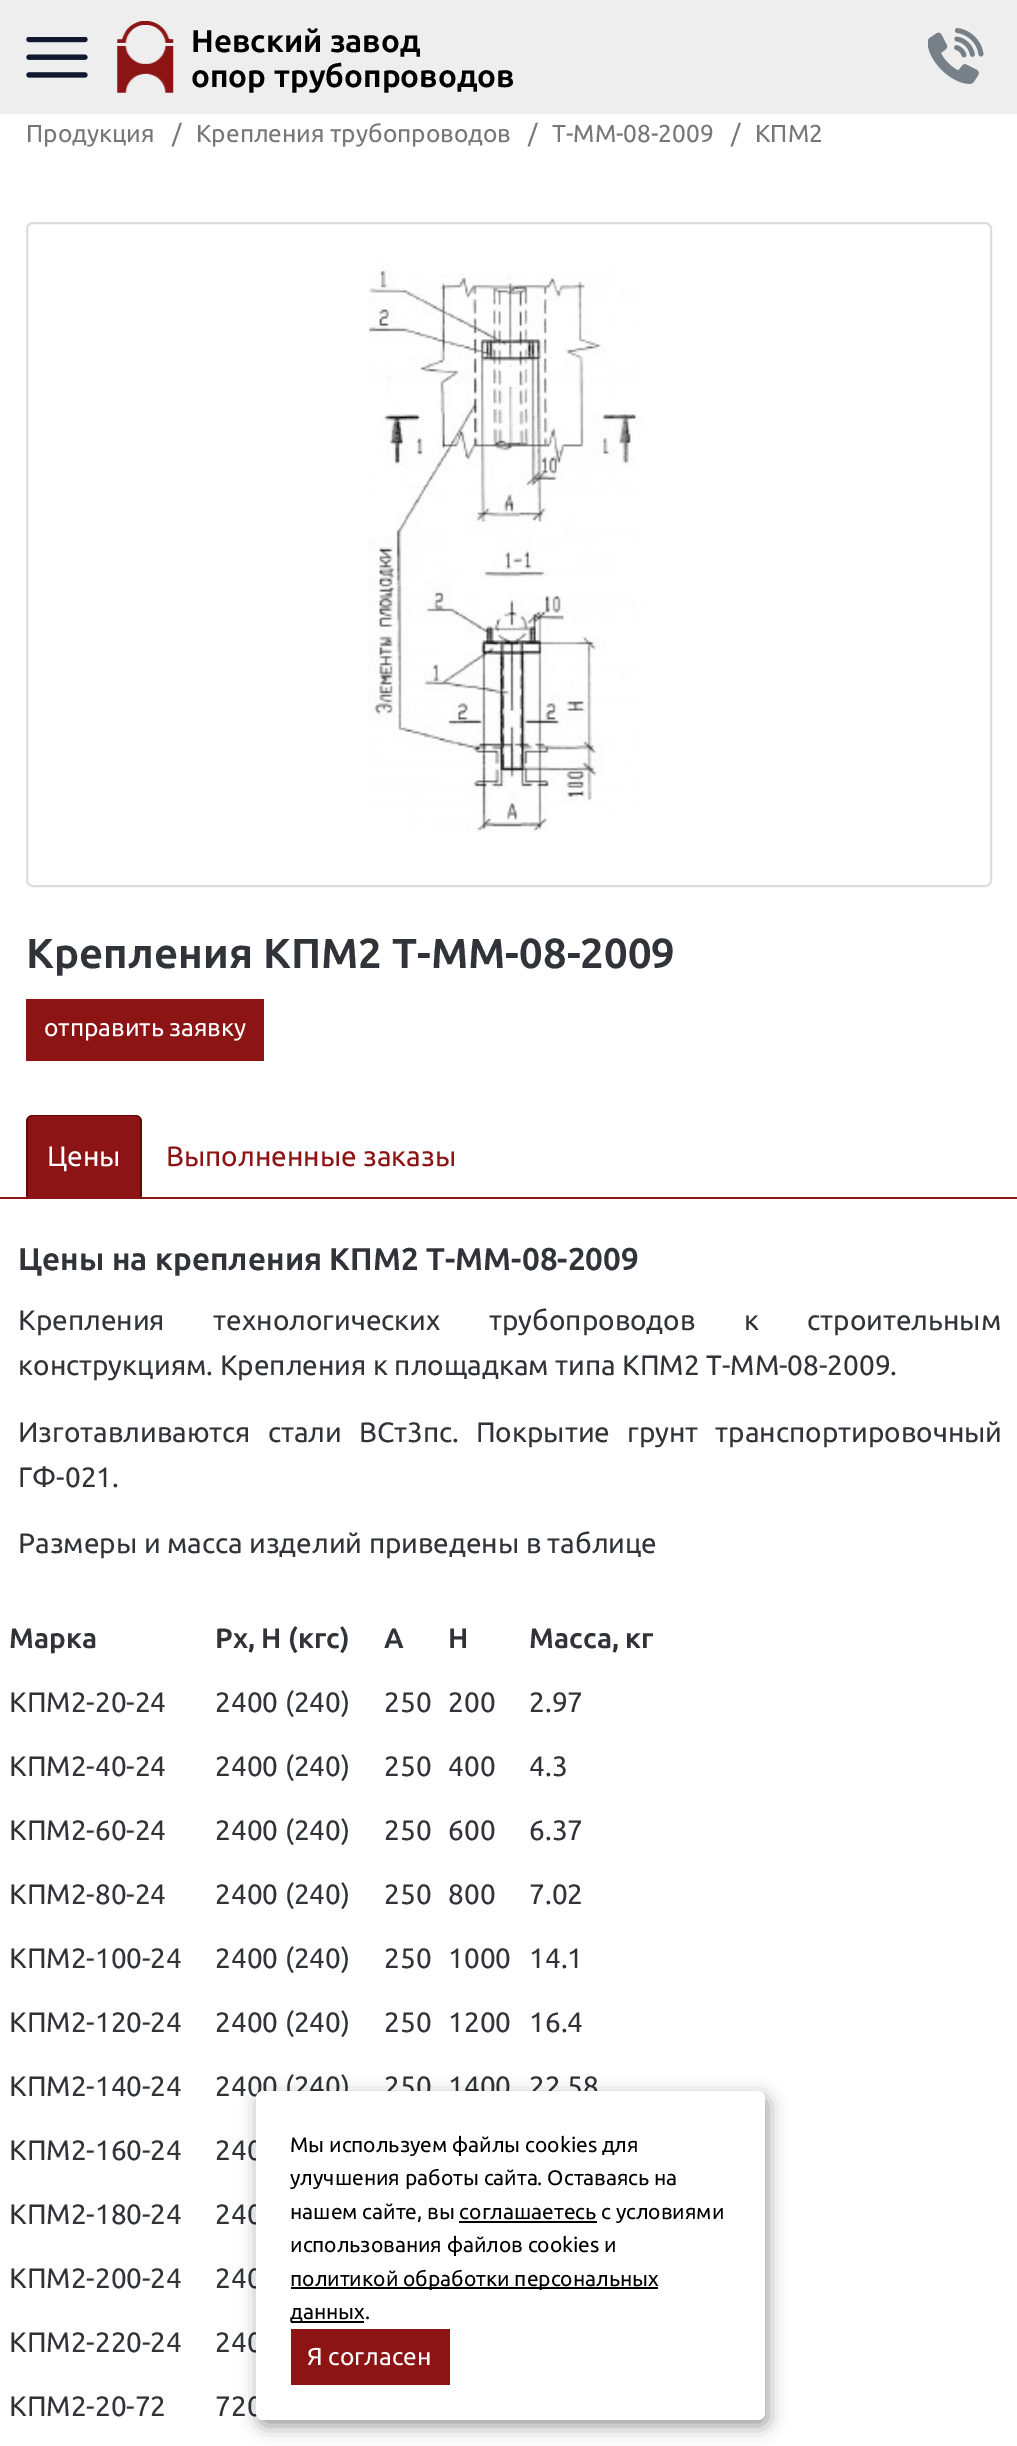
%!PS
<< /PageSize [1017 2446] /PageUsesTransparency true >> setpagedevice
/m/moveto load def
/l/rlineto load def
/c/rcurveto load def
/z/closepath load def
/f/fill load def
/s/stroke load def
/w/setlinewidth load def
/C { dup -16 bitshift 255 div exch dup -8 bitshift 255 and 255 div exch 255 and 255 div setrgbcolor } def
/F { [ exch dup neg 0 0 3 -1 roll 0 0 ] selectfont } def
/T { moveto show } def
/R { rectfill } def
/A { dup .setfillconstantalpha .setstrokeconstantalpha } def
/Q { 5 dict begin { /r /h /w /y /x } { exch def } forall
  x r add y moveto x w add y 2 copy h add r arct x w add y h add x 1 index r arct
  x y h add x y r arct x y 2 copy exch w add exch r arct closepath end } def
/S { 12 dict begin { /a /b /q /h /w /y /x } { exch def } forall gsave /was 0 def
  9 -2 -9 { dup b mul 4 div /e exch def 1 sub .425 mul 2.718 exch exp 1 add a .99 .min exch div /now exch def
    1 1 now sub 1 was sub div sub A /was now def
    w h .min e 2 mul add 0 gt { x e sub y e sub w e 2 mul add h e 2 mul add
      q e add b .6 mul add w h .min 2 div e add .min 0 .max Q fill } if } for grestore end } def
/I { 5 dict begin { /h /w /y /x /name } { exch def } forall
  gsave x y translate w h scale
  w h 8 [w 0 0 h 0 0] name (r) file false 3 colorimage grestore end } def
0 .pushpdf14devicefilter
0 2446 translate 1 -1 scale
4 setmiterlimit
16#FFFFFF C
0 0 1017 2446 R
16#EEEEEE C
0 0 1017 114 R
(1.rgb) 26 37 62 41 I
(2.rgb) 117 21 57 72 I
/Ubuntu-Bold 31.5 F
16#000000 C
(Невский завод) 191 52 T
(опор трубопроводов) 191 87 T
(3.rgb) 928 28 56 56 I
/Ubuntu-Regular 24.5 F
16#777777 C
(Продукция) 26 142 T
(/) 172 142 T
(Крепления трубопроводов) 196 142 T
(/) 528 142 T
(Т-ММ-08-2009) 552 142 T
(/) 731 142 T
(КПМ2) 755 142 T
16#DDDDDD C
2 w
27 223 964 663 6 Q s
(4.rgb) 368 263 277 569 I
/Ubuntu-Bold 42 F
16#303338 C
(Крепления КПМ2 Т-ММ-08-2009) 26 968 T
16#8C1414 C
26 999 238 62 R
/Ubuntu-Regular 24.5 F
16#FFFFFF C
(отправить заявку) 44 1036 T
16#8C1414 C
0 1197 1017 2 R
33 1115 m 102 0 l 4 0 7 3 7 7 c 0 77 l -116 0 l 0 -77 l 0 -4 3 -7 7 -7 c z f
16#630707 C
33 1115 m -2 0 -4 1 -5 2 c 1 1 l 1 -1 3 -2 4 -2 c 102 0 l 1 0 3 1 4 2 c 1 -1 l -1 -1 -3 -2 -5 -2 c z f
140 1117 m 2 3 l 0 79 l -2 -2 l 0 -75 l 0 -2 0 -3 -1 -4 c z f
26 1199 m 2 -2 l 0 -75 l 0 -2 0 -3 1 -4 c -1 -1 l -2 3 l z f
/Ubuntu-Regular 28 F
16#FFFFFF C
(Цены) 47 1166 T
16#8C1414 C
(Выполненные заказы) 166 1166 T
/Ubuntu-Bold 31.5 F
16#303338 C
(Цены на крепления КПМ2 Т-ММ-08-2009) 18 1270 T
/Ubuntu-Regular 28 F
18 1330 m 42 0 32 (Крепления технологических трубопроводов к строительным) widthshow
(конструкциям. Крепления к площадкам типа КПМ2 Т-ММ-08-2009.) 18 1375 T
18 1442 m 10.5 0 32 (Изготавливаются стали ВСт3пс. Покрытие грунт транспортировочный) widthshow
(ГФ-021.) 18 1487 T
(Размеры и масса изделий приведены в таблице) 18 1553 T
/Ubuntu-Bold 28 F
(Марка) 9 1648 T
(Px, Н \(кгс\)) 215 1648 T
(А) 384 1648 T
(Н) 448 1648 T
(Масса, кг) 529 1648 T
/Ubuntu-Regular 28 F
(КПМ2-20-24) 9 1712 T
(2400 \(240\)) 215 1712 T
(250) 384 1712 T
(200) 448 1712 T
(2.97) 529 1712 T
(КПМ2-40-24) 9 1776 T
(2400 \(240\)) 215 1776 T
(250) 384 1776 T
(400) 448 1776 T
(4.3) 529 1776 T
(КПМ2-60-24) 9 1840 T
(2400 \(240\)) 215 1840 T
(250) 384 1840 T
(600) 448 1840 T
(6.37) 529 1840 T
(КПМ2-80-24) 9 1904 T
(2400 \(240\)) 215 1904 T
(250) 384 1904 T
(800) 448 1904 T
(7.02) 529 1904 T
(КПМ2-100-24) 9 1968 T
(2400 \(240\)) 215 1968 T
(250) 384 1968 T
(1000) 448 1968 T
(14.1) 529 1968 T
(КПМ2-120-24) 9 2032 T
(2400 \(240\)) 215 2032 T
(250) 384 2032 T
(1200) 448 2032 T
(16.4) 529 2032 T
(КПМ2-140-24) 9 2096 T
(2400 \(240\)) 215 2096 T
(250) 384 2096 T
(1400) 448 2096 T
(22.58) 529 2096 T
(КПМ2-160-24) 9 2160 T
(240) 215 2160 T
(КПМ2-180-24) 9 2224 T
(240) 215 2224 T
(КПМ2-200-24) 9 2288 T
(240) 215 2288 T
(КПМ2-220-24) 9 2352 T
(240) 215 2352 T
(КПМ2-20-72) 9 2416 T
(720) 215 2416 T
16#000000 C
259 2097 509 329 7 9 .4 S
16#FFFFFF C
256 2091 509 329 7 Q f
/Ubuntu-Regular 21 F
16#000000 C
(Мы используем файлы cookies для) 290 2152 T
(улучшения работы сайта. Оставаясь на) 290 2185 T
(нашем сайте, вы соглашаетесь с условиями) 290 2219 T
459 2221 138 2 R
(использования файлов cookies и) 290 2252 T
291 2287 367 2 R
(политикой обработки персональных) 290 2286 T
291 2321 73 2 R
(данных.) 290 2319 T
16#8C1414 C
291 2329 159 56 R
/Ubuntu-Regular 24.5 F
16#FFFFFF C
(Я согласен) 307 2365 T
.poppdf14devicefilter showpage
